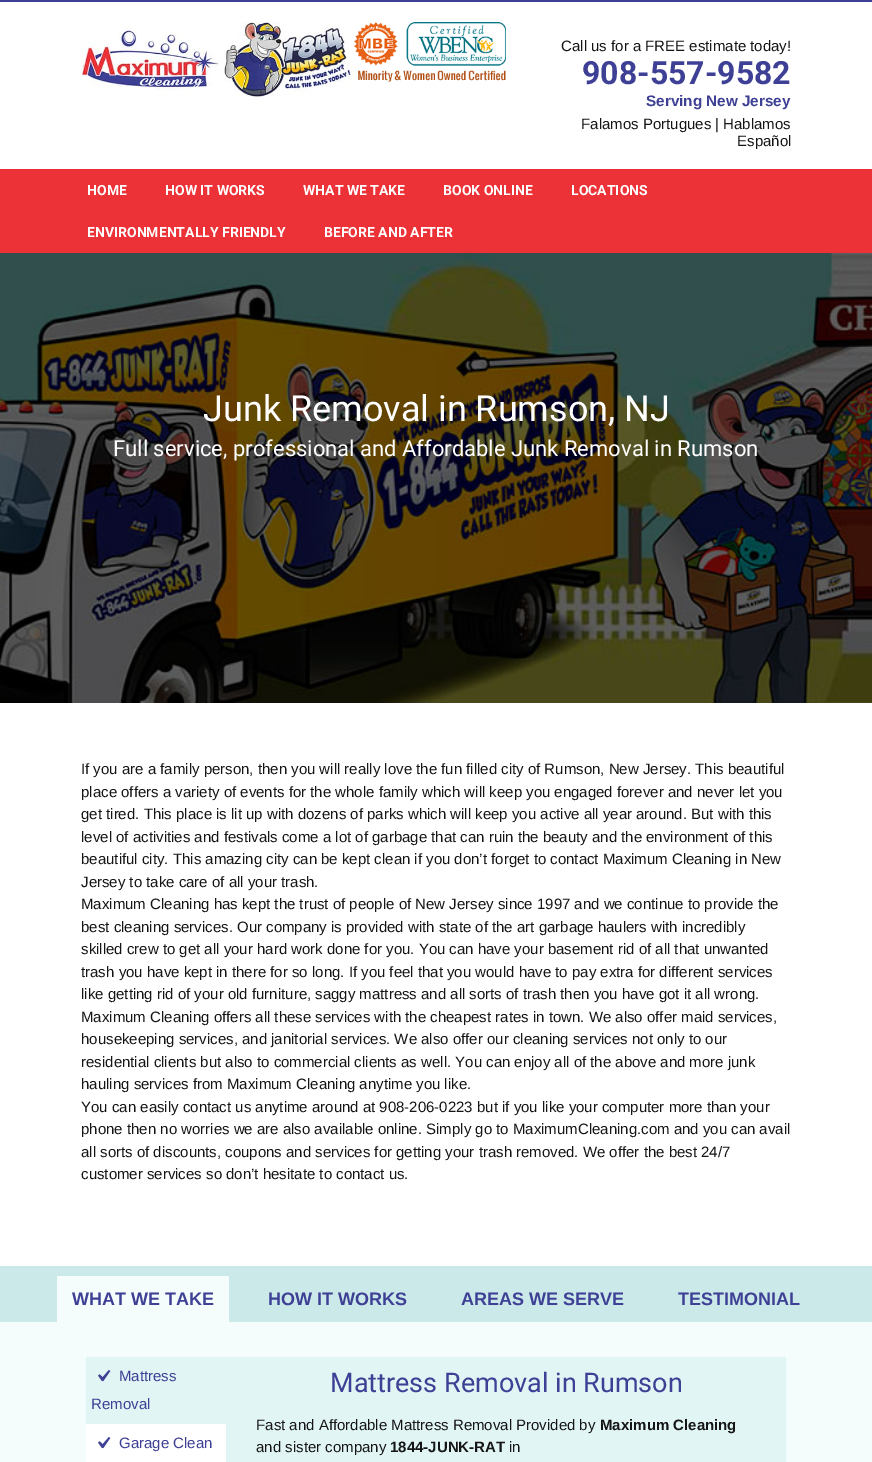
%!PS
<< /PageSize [872 1462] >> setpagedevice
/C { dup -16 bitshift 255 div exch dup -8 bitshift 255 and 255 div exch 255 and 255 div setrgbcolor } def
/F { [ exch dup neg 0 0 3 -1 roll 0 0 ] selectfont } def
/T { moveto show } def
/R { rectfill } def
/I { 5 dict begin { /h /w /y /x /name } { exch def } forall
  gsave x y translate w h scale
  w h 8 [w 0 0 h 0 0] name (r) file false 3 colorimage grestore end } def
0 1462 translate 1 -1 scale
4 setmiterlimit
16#FFFFFF C
0 0 872 1462 R
16#3E4095 C
0 0 872 2 R
(1.rgb) 81 22 272 75 I
(2.rgb) 354 22 152 60 I
/LiberationSans-Regular 15 F
16#151515 C
(Call us for a FREE estimate today!) 561 51 T
/Roboto-Bold 32 F
16#3E4095 C
(908-557-9582) 582 84 T
/LiberationSans-Bold 15.25 F
(Serving New Jersey) 646 106 T
/LiberationSans-Regular 15 F
16#151515 C
(Falamos Portugues | Hablamos) 581 129 T
(Español) 737 146 T
16#ED3237 C
0 169 872 84 R
/Roboto-Bold 14 F
16#FFFFFF C
(HOME) 87 195 T
(HOW IT WORKS) 165 195 T
(WHAT WE TAKE) 303 195 T
(BOOK ONLINE) 443 195 T
(LOCATIONS) 571 195 T
(ENVIRONMENTALLY FRIENDLY) 87 237 T
(BEFORE AND AFTER) 324 237 T
(3.rgb) 0 253 872 450 I
/Roboto-Regular 36 F
(Junk Removal in Rumson, NJ) 203 421 T
/Roboto-Regular 22 F
(Full service, professional and Affordable Junk Removal in Rumson) 113 456 T
/LiberationSans-Regular 15 F
16#151515 C
(If you are a family person, then you will really love the fun filled city of Rumson, New Jersey. This beautiful) 81 774 T
(place offers a variety of events for the whole family which will keep you engaged forever and never let you) 81 797 T
(get tired. This place is lit up with dozens of parks which will keep you active all year around. But with this) 81 819 T
(level of activities and festivals come a lot of garbage that can ruin the beauty and the environment of this) 81 842 T
(beautiful city. This amazing city can be kept clean if you don’t forget to contact Maximum Cleaning in New) 81 864 T
(Jersey to take care of all your trash.) 81 887 T
(Maximum Cleaning has kept the trust of people of New Jersey since 1997 and we continue to provide the) 81 909 T
(best cleaning services. Our company is provided with state of the art garbage haulers with incredibly) 81 932 T
(skilled crew to get all your hard work done for you. You can have your basement rid of all that unwanted) 81 954 T
(trash you have kept in there for so long. If you feel that you would have to pay extra for different services) 81 977 T
(like getting rid of your old furniture, saggy mattress and all sorts of trash then you have got it all wrong.) 81 999 T
(Maximum Cleaning offers all these services with the cheapest rates in town. We also offer maid services,) 81 1022 T
(housekeeping services, and janitorial services. We also offer our cleaning services not only to our) 81 1044 T
(residential clients but also to commercial clients as well. You can enjoy all of the above and more junk) 81 1067 T
(hauling services from Maximum Cleaning anytime you like.) 81 1089 T
(You can easily contact us anytime around at 908-206-0223 but if you like your computer more than your) 81 1112 T
(phone then no worries we are also available online. Simply go to MaximumCleaning.com and you can avail) 81 1134 T
(all sorts of discounts, coupons and services for getting your trash removed. We offer the best 24/7) 81 1157 T
(customer services so don’t hesitate to contact us.) 81 1179 T
16#F5FCFC C
0 1322 872 140 R
16#CCE9EA C
0 1266 872 56 R
16#F5FCFC C
57 1276 172 46 R
/LiberationSans-Bold 18 F
16#3E4095 C
(WHAT WE TAKE) 72 1305 T
(HOW IT WORKS) 268 1305 T
(AREAS WE SERVE) 461 1305 T
(TESTIMONIAL) 678 1305 T
16#E2F5F5 C
226 1357 560 105 R
16#FFFFFF C
86 1424 140 38 R
16#E2F5F5 C
86 1357 140 67 R
(4.rgb) 98 1369 13 13 I
/LiberationSans-Regular 15 F
16#3E4095 C
(Mattress) 119 1381 T
(Removal) 91 1409 T
(5.rgb) 98 1436 13 13 I
(Garage Clean) 119 1448 T
/Roboto-Regular 27 F
(Mattress Removal in Rumson) 330 1392 T
/LiberationSans-Regular 15 F
16#151515 C
(Fast and Affordable Mattress Removal Provided by) 256 1430 T
/LiberationSans-Bold 15 F
(Maximum Cleaning) 600 1430 T
/LiberationSans-Regular 15 F
(and sister company) 256 1452 T
/LiberationSans-Bold 15 F
(1844-JUNK-RAT) 390 1452 T
/LiberationSans-Regular 15 F
(in) 509 1452 T
showpage
